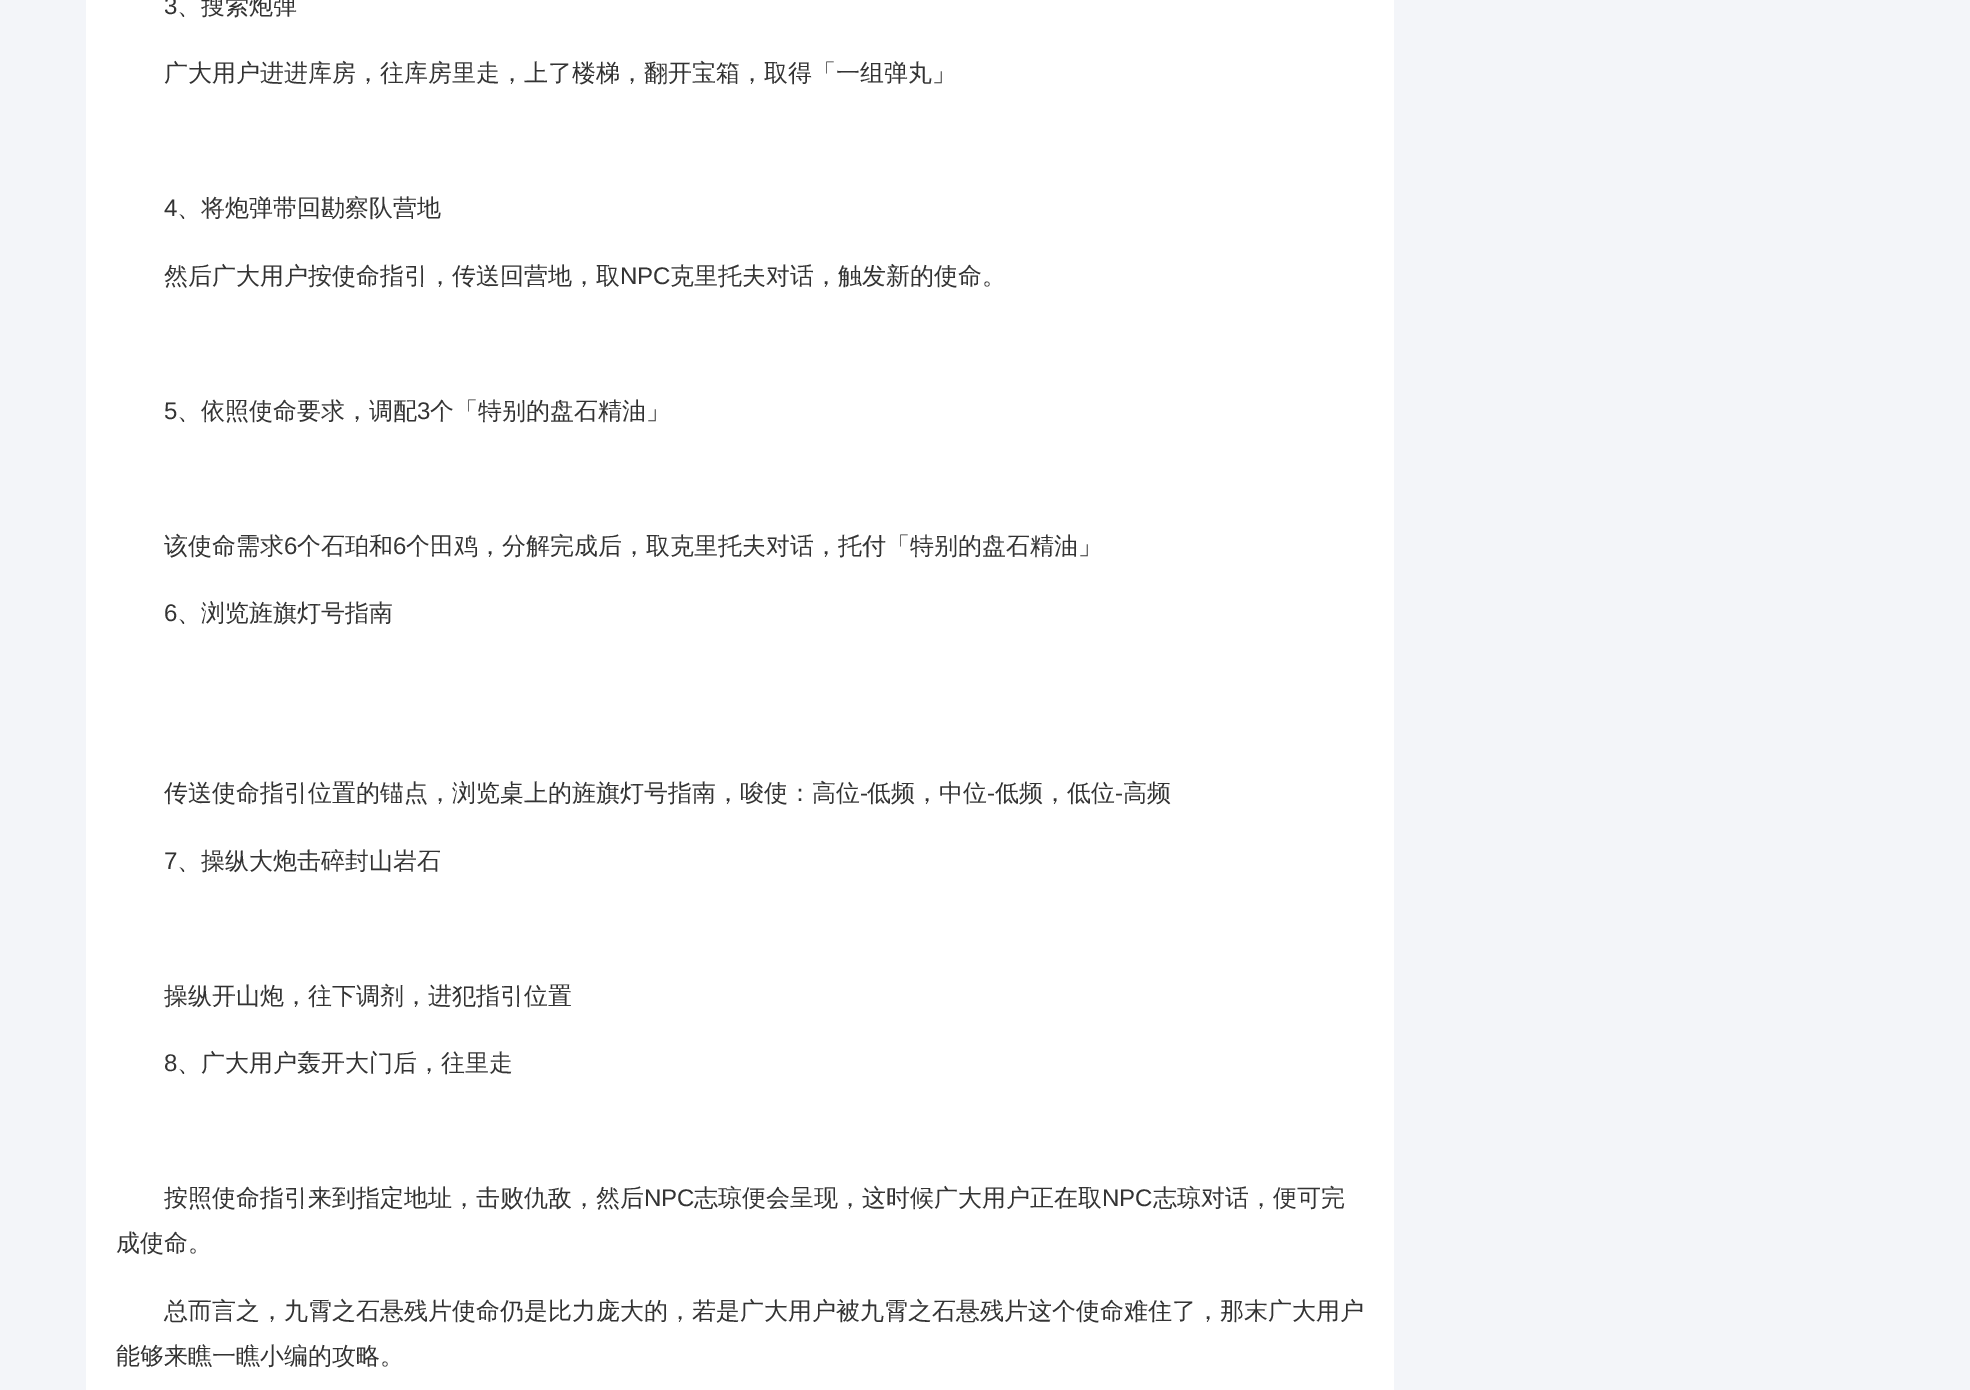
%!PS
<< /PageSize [1970 1390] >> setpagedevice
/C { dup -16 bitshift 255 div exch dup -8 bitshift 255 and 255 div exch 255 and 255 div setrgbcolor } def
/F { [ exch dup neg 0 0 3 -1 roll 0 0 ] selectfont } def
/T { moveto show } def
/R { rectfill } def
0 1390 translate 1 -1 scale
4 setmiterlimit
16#F3F5F9 C
0 0 1970 1390 R
16#FFFFFF C
86 0 1308 1390 R
/LiberationSans-Regular 24 F
16#333333 C
(3) 164 14 T
/WenQuanYiZenHei-Medium 24 F
(、搜索炮弹) 177 14 T
(广大用户进进库房，往库房里走，上了楼梯，翻开宝箱，取得「一组弹丸」) 164 81 T
/LiberationSans-Regular 24 F
(4) 164 216 T
/WenQuanYiZenHei-Medium 24 F
(、将炮弹带回勘察队营地) 177 216 T
(然后广大用户按使命指引，传送回营地，取) 164 284 T
/LiberationSans-Regular 24 F
(NPC) 620 284 T
/WenQuanYiZenHei-Medium 24 F
(克里托夫对话，触发新的使命。) 670 284 T
/LiberationSans-Regular 24 F
(5) 164 419 T
/WenQuanYiZenHei-Medium 24 F
(、依照使命要求，调配) 177 419 T
/LiberationSans-Regular 24 F
(3) 417 419 T
/WenQuanYiZenHei-Medium 24 F
(个「特别的盘石精油」) 430 419 T
(该使命需求) 164 554 T
/LiberationSans-Regular 24 F
(6) 284 554 T
/WenQuanYiZenHei-Medium 24 F
(个石珀和) 297 554 T
/LiberationSans-Regular 24 F
(6) 393 554 T
/WenQuanYiZenHei-Medium 24 F
(个田鸡，分解完成后，取克里托夫对话，托付「特别的盘石精油」) 406 554 T
/LiberationSans-Regular 24 F
(6) 164 621 T
/WenQuanYiZenHei-Medium 24 F
(、浏览旌旗灯号指南) 177 621 T
(传送使命指引位置的锚点，浏览桌上的旌旗灯号指南，唆使：高位) 164 801 T
/LiberationSans-Regular 24 F
(-) 860 801 T
/WenQuanYiZenHei-Medium 24 F
(低频，中位) 867 801 T
/LiberationSans-Regular 24 F
(-) 987 801 T
/WenQuanYiZenHei-Medium 24 F
(低频，低位) 995 801 T
/LiberationSans-Regular 24 F
(-) 1115 801 T
/WenQuanYiZenHei-Medium 24 F
(高频) 1123 801 T
/LiberationSans-Regular 24 F
(7) 164 869 T
/WenQuanYiZenHei-Medium 24 F
(、操纵大炮击碎封山岩石) 177 869 T
(操纵开山炮，往下调剂，进犯指引位置) 164 1004 T
/LiberationSans-Regular 24 F
(8) 164 1071 T
/WenQuanYiZenHei-Medium 24 F
(、广大用户轰开大门后，往里走) 177 1071 T
(按照使命指引来到指定地址，击败仇敌，然后) 164 1206 T
/LiberationSans-Regular 24 F
(NPC) 644 1206 T
/WenQuanYiZenHei-Medium 24 F
(志琼便会呈现，这时候广大用户正在取) 694 1206 T
/LiberationSans-Regular 24 F
(NPC) 1102 1206 T
/WenQuanYiZenHei-Medium 24 F
(志琼对话，便可完) 1153 1206 T
(成使命。) 116 1251 T
(总而言之，九霄之石悬残片使命仍是比力庞大的，若是广大用户被九霄之石悬残片这个使命难住了，那末广大用户) 164 1319 T
(能够来瞧一瞧小编的攻略。) 116 1364 T
showpage
